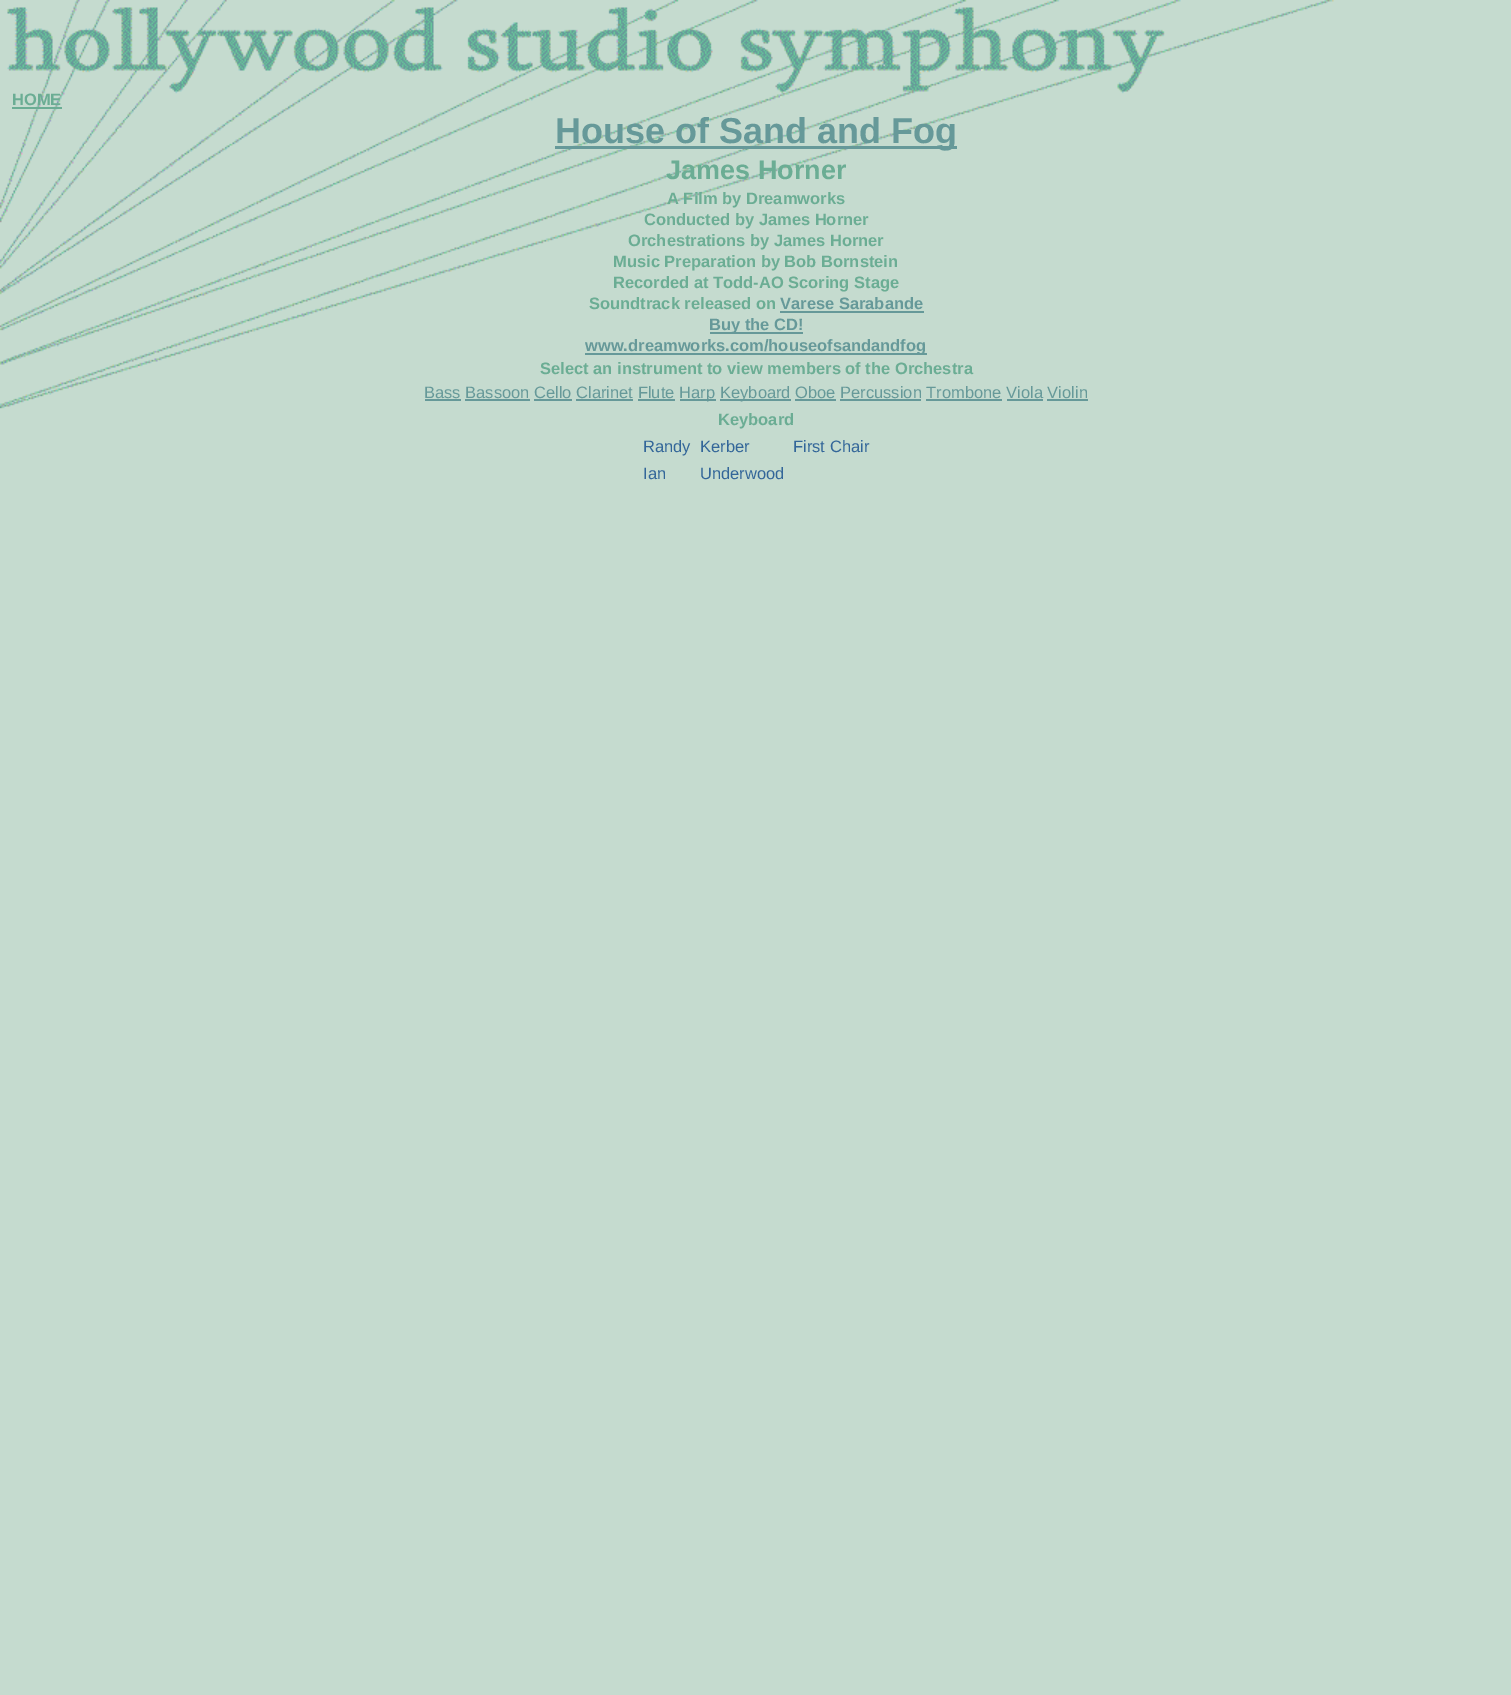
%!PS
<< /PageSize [1511 1695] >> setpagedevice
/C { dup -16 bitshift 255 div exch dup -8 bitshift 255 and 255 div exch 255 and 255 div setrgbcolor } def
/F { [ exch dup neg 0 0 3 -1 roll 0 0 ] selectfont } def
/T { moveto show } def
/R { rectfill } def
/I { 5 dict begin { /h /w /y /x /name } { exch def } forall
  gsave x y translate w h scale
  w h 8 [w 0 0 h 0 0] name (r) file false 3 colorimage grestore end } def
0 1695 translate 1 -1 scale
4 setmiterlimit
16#C5DBCF C
0 0 1511 1695 R
(1.rgb) 0 0 1334 409 I
/LiberationSans-Bold 16.5 F
16#6BAD94 C
(HOME) 12 105 T
12 107 50 2 R
16#669999 C
555 146 402 3 R
/LiberationSans-Bold 36 F
(House of Sand and Fog) 555 143 T
/LiberationSans-Bold 27 F
16#6BAD94 C
(James Horner) 666 179 T
/LiberationSans-Bold 16.5 F
(A Film by Dreamworks) 667 204 T
(Conducted by James Horner) 644 225 T
(Orchestrations by James Horner) 628 246 T
(Music Preparation by Bob Bornstein) 613 267 T
(Recorded at Todd-AO Scoring Stage) 613 288 T
(Soundtrack released on) 589 309 T
16#669999 C
(Varese Sarabande) 780 309 T
780 311 144 2 R
710 332 93 2 R
(Buy the CD!) 709 330 T
585 353 342 2 R
(www.dreamworks.com/houseofsandandfog) 585 351 T
16#6BAD94 C
(Select an instrument to view members of the Orchestra) 540 374 T
/LiberationSans-Regular 16.5 F
16#669999 C
(Bass Bassoon Cello Clarinet Flute) 424 398 T
425 399 36 2 R
680 399 36 2 R
(Harp) 679 398 T
720 399 71 2 R
(Keyboard Oboe Percussion Trombone Viola Violin) 720 398 T
465 399 65 2 R
534 399 38 2 R
576 399 57 2 R
638 399 37 2 R
795 399 41 2 R
840 399 81 2 R
926 399 76 2 R
1007 399 36 2 R
1047 399 41 2 R
/LiberationSans-Bold 16.5 F
16#6BAD94 C
(Keyboard) 718 425 T
/LiberationSans-Regular 16.5 F
16#336699 C
(Randy) 643 452 T
(Kerber) 700 452 T
(First Chair) 793 452 T
(Ian) 643 479 T
(Underwood) 700 479 T
showpage
